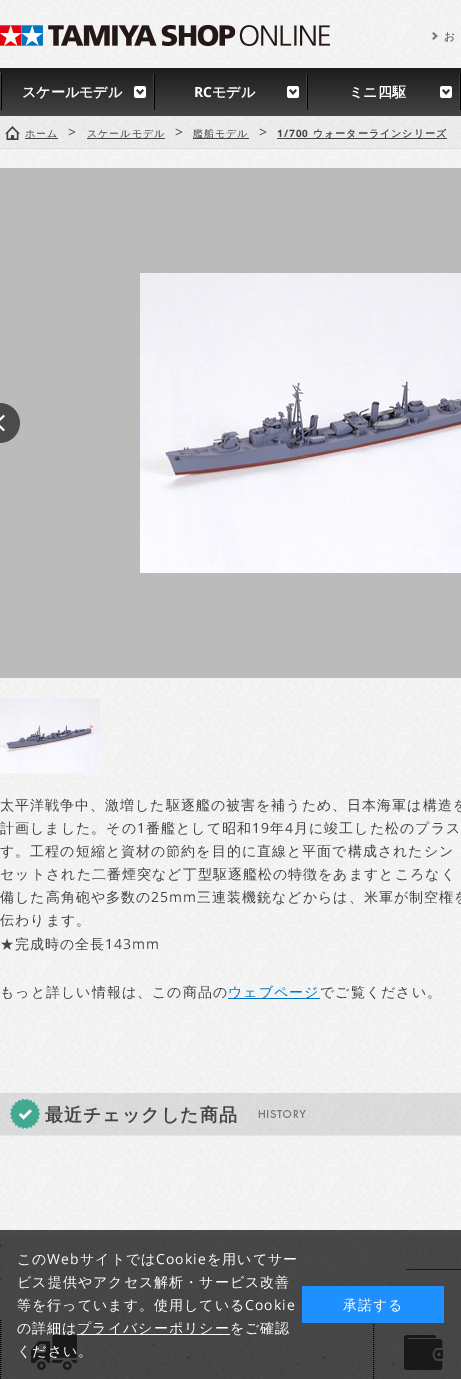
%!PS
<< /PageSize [461 1379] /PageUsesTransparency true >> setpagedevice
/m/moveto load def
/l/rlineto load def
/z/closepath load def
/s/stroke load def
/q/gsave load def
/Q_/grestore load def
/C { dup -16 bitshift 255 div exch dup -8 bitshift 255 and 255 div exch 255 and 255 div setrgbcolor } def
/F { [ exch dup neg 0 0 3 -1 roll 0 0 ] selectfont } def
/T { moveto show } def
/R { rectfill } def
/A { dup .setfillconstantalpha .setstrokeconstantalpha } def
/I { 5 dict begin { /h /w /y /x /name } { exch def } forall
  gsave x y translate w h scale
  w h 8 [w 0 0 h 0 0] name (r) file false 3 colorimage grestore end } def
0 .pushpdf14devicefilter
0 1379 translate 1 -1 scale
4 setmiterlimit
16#FFFFFF C
0 0 461 1379 R
(1.rgb) 0 0 461 1236 I
(2.rgb) 0 25 330 21 I
(3.rgb) 432 32 6 8 I
/WenQuanYiZenHei-Medium 11 F
16#444444 C
444 40 m 1 0 (お) ashow
q 0 68 m 461 0 l 0 48 l -461 0 l z clip newpath
<< /ShadingType 2 /ColorSpace /DeviceRGB /Coords [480 116 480 68] /Extend [true true] /Function << /FunctionType 2 /Domain [0 1] /C0 [.267 .267 .267] /C1 [.11 .11 .11] /N 1 >> >> shfill Q_
16#424242 C
0 72 1 36 R
(4.rgb) 134 86 12 12 I
153 74 1 36 R
16#000000 C
1 74 1 36 R
/WenQuanYiZenHei-Bold 14 F
16#FFFFFF C
(スケールモデル) 22 97 T
(4.rgb) 287 86 12 12 I
16#424242 C
306 74 1 36 R
16#000000 C
154 74 1 36 R
/OpenSans-Bold 14 F
16#FFFFFF C
(RC) 194 97 T
/WenQuanYiZenHei-Bold 14 F
(モデル) 212 97 T
(4.rgb) 440 86 12 12 I
16#424242 C
459 74 1 36 R
16#000000 C
307 74 1 36 R
16#FFFFFF C
(ミニ四駆) 349 97 T
16#000000 C
460 74 1 36 R
0.03 A
0 116 461 32 R
1 A
16#DDDDDD C
0 148 461 1 R
(5.rgb) 5 126 15 14 I
/WenQuanYiZenHei-Medium 10 F
16#444444 C
25 137 m 1 0 (ホーム) ashow
25 138 33 1 R
/OpenSans-Regular 14 F
68 137 m 1 0 (>) ashow
87 138 78 1 R
/WenQuanYiZenHei-Medium 10 F
87 137 m 1 0 (スケールモデル) ashow
/OpenSans-Regular 14 F
175 137 m 1 0 (>) ashow
193 138 56 1 R
/WenQuanYiZenHei-Medium 10 F
193 137 m 1 0 (艦船モデル) ashow
/OpenSans-Regular 14 F
259 137 m 1 0 (>) ashow
/OpenSans-Bold 10 F
277 137 m 1 0 (1/700) ashow
277 138 170 1 R
/WenQuanYiZenHei-Bold 10 F
313 137 m 1 0 (ウォーターラインシリーズ) ashow
16#BBBBBB C
0 168 461 510 R
(6.rgb) 140 273 321 300 I
(7.rgb) 0 403 20 40 I
(8.rgb) 0 698 100 75 I
/WenQuanYiZenHei-Medium 14 F
16#444444 C
0 810 m 1 0 (太平洋戦争中、激増した駆逐艦の被害を補うため、日本海軍は構造を) ashow
0 833 m 1 0 (計画しました。その) ashow
/OpenSans-Regular 14 F
137 833 m 1 0 (1) ashow
/WenQuanYiZenHei-Medium 14 F
146 833 m 1 0 (番艦として昭和) ashow
/OpenSans-Regular 14 F
252 833 m 1 0 (19) ashow
/WenQuanYiZenHei-Medium 14 F
270 833 m 1 0 (年) ashow
/OpenSans-Regular 14 F
285 833 m 1 0 (4) ashow
/WenQuanYiZenHei-Medium 14 F
294 833 m 1 0 (月に竣工した松のプラス) ashow
0 856 m 1 0 (す。工程の短縮と資材の節約を目的に直線と平面で構成されたシン) ashow
0 879 m 1 0 (セットされた二番煙突など丁型駆逐艦松の特徴をあますところなく) ashow
0 902 m 1 0 (備した高角砲や多数の) ashow
/OpenSans-Regular 14 F
151 902 m 1 0 (25mm) ashow
/WenQuanYiZenHei-Medium 14 F
197 902 m 1 0 (三連装機銃などからは、米軍が制空権を) ashow
0 925 m 1 0 (伝わります。) ashow
0 949 m 1 0 (★完成時の全長) ashow
/OpenSans-Regular 14 F
105 949 m 1 0 (143mm) ashow
/WenQuanYiZenHei-Medium 14 F
0 997 m 1 0 (もっと詳しい情報は、この商品の) ashow
16#0075C1 C
228 998 92 1 R
228 997 m 1 0 (ウェブページ) ashow
16#444444 C
320 997 m 1 0 (でご覧ください。) ashow
0.05 A
16#000000 C
0 1093 461 43 R
0 1093 461 42 R
1 A
(9.rgb) 258 1110 48 8 I
(10.rgb) 10 1098 30 31 I
/WenQuanYiZenHei-Bold 18 F
16#444444 C
45 1121 m 1 0 (最近チェックした商品) ashow
(11.rgb) 0 1236 461 143 I
16#0075C1 C
406 1269 55 1 R
16#000000 C
[1 1] 0 setdash
.5 1320 m 0 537 l s
373.5 1320 m 0 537 l s
(12.rgb) 31 1335 46 35 I
(13.rgb) 404 1335 39 35 I
0.7 A
0 1230 461 149 R
/WenQuanYiZenHei-Medium 14 F
1 A
16#FFFFFF C
17 1264 m 1 0 (この) ashow
/OpenSans-Regular 14 F
47 1264 m 1 0 (Web) ashow
/WenQuanYiZenHei-Medium 14 F
80 1264 m 1 0 (サイトでは) ashow
/OpenSans-Regular 14 F
156 1264 m 1 0 (Cookie) ashow
/WenQuanYiZenHei-Medium 14 F
207 1264 m 1 0 (を用いてサー) ashow
17 1287 m 1 0 (ビス提供やアクセス解析・サービス改善) ashow
17 1310 m 1 0 (等を行っています。使用している) ashow
/OpenSans-Regular 14 F
245 1310 m 1 0 (Cookie) ashow
/WenQuanYiZenHei-Medium 14 F
17 1333 m 1 0 (の詳細は) ashow
77 1334 153 1 R
77 1333 m 1 0 (プライバシーポリシーをご確認) ashow
17 1356 m 1 0 (ください。) ashow
16#1E90FF C
302 1286 142 37 R
16#FFFFFF C
343 1310 m 1 0 (承諾する) ashow
.poppdf14devicefilter showpage
